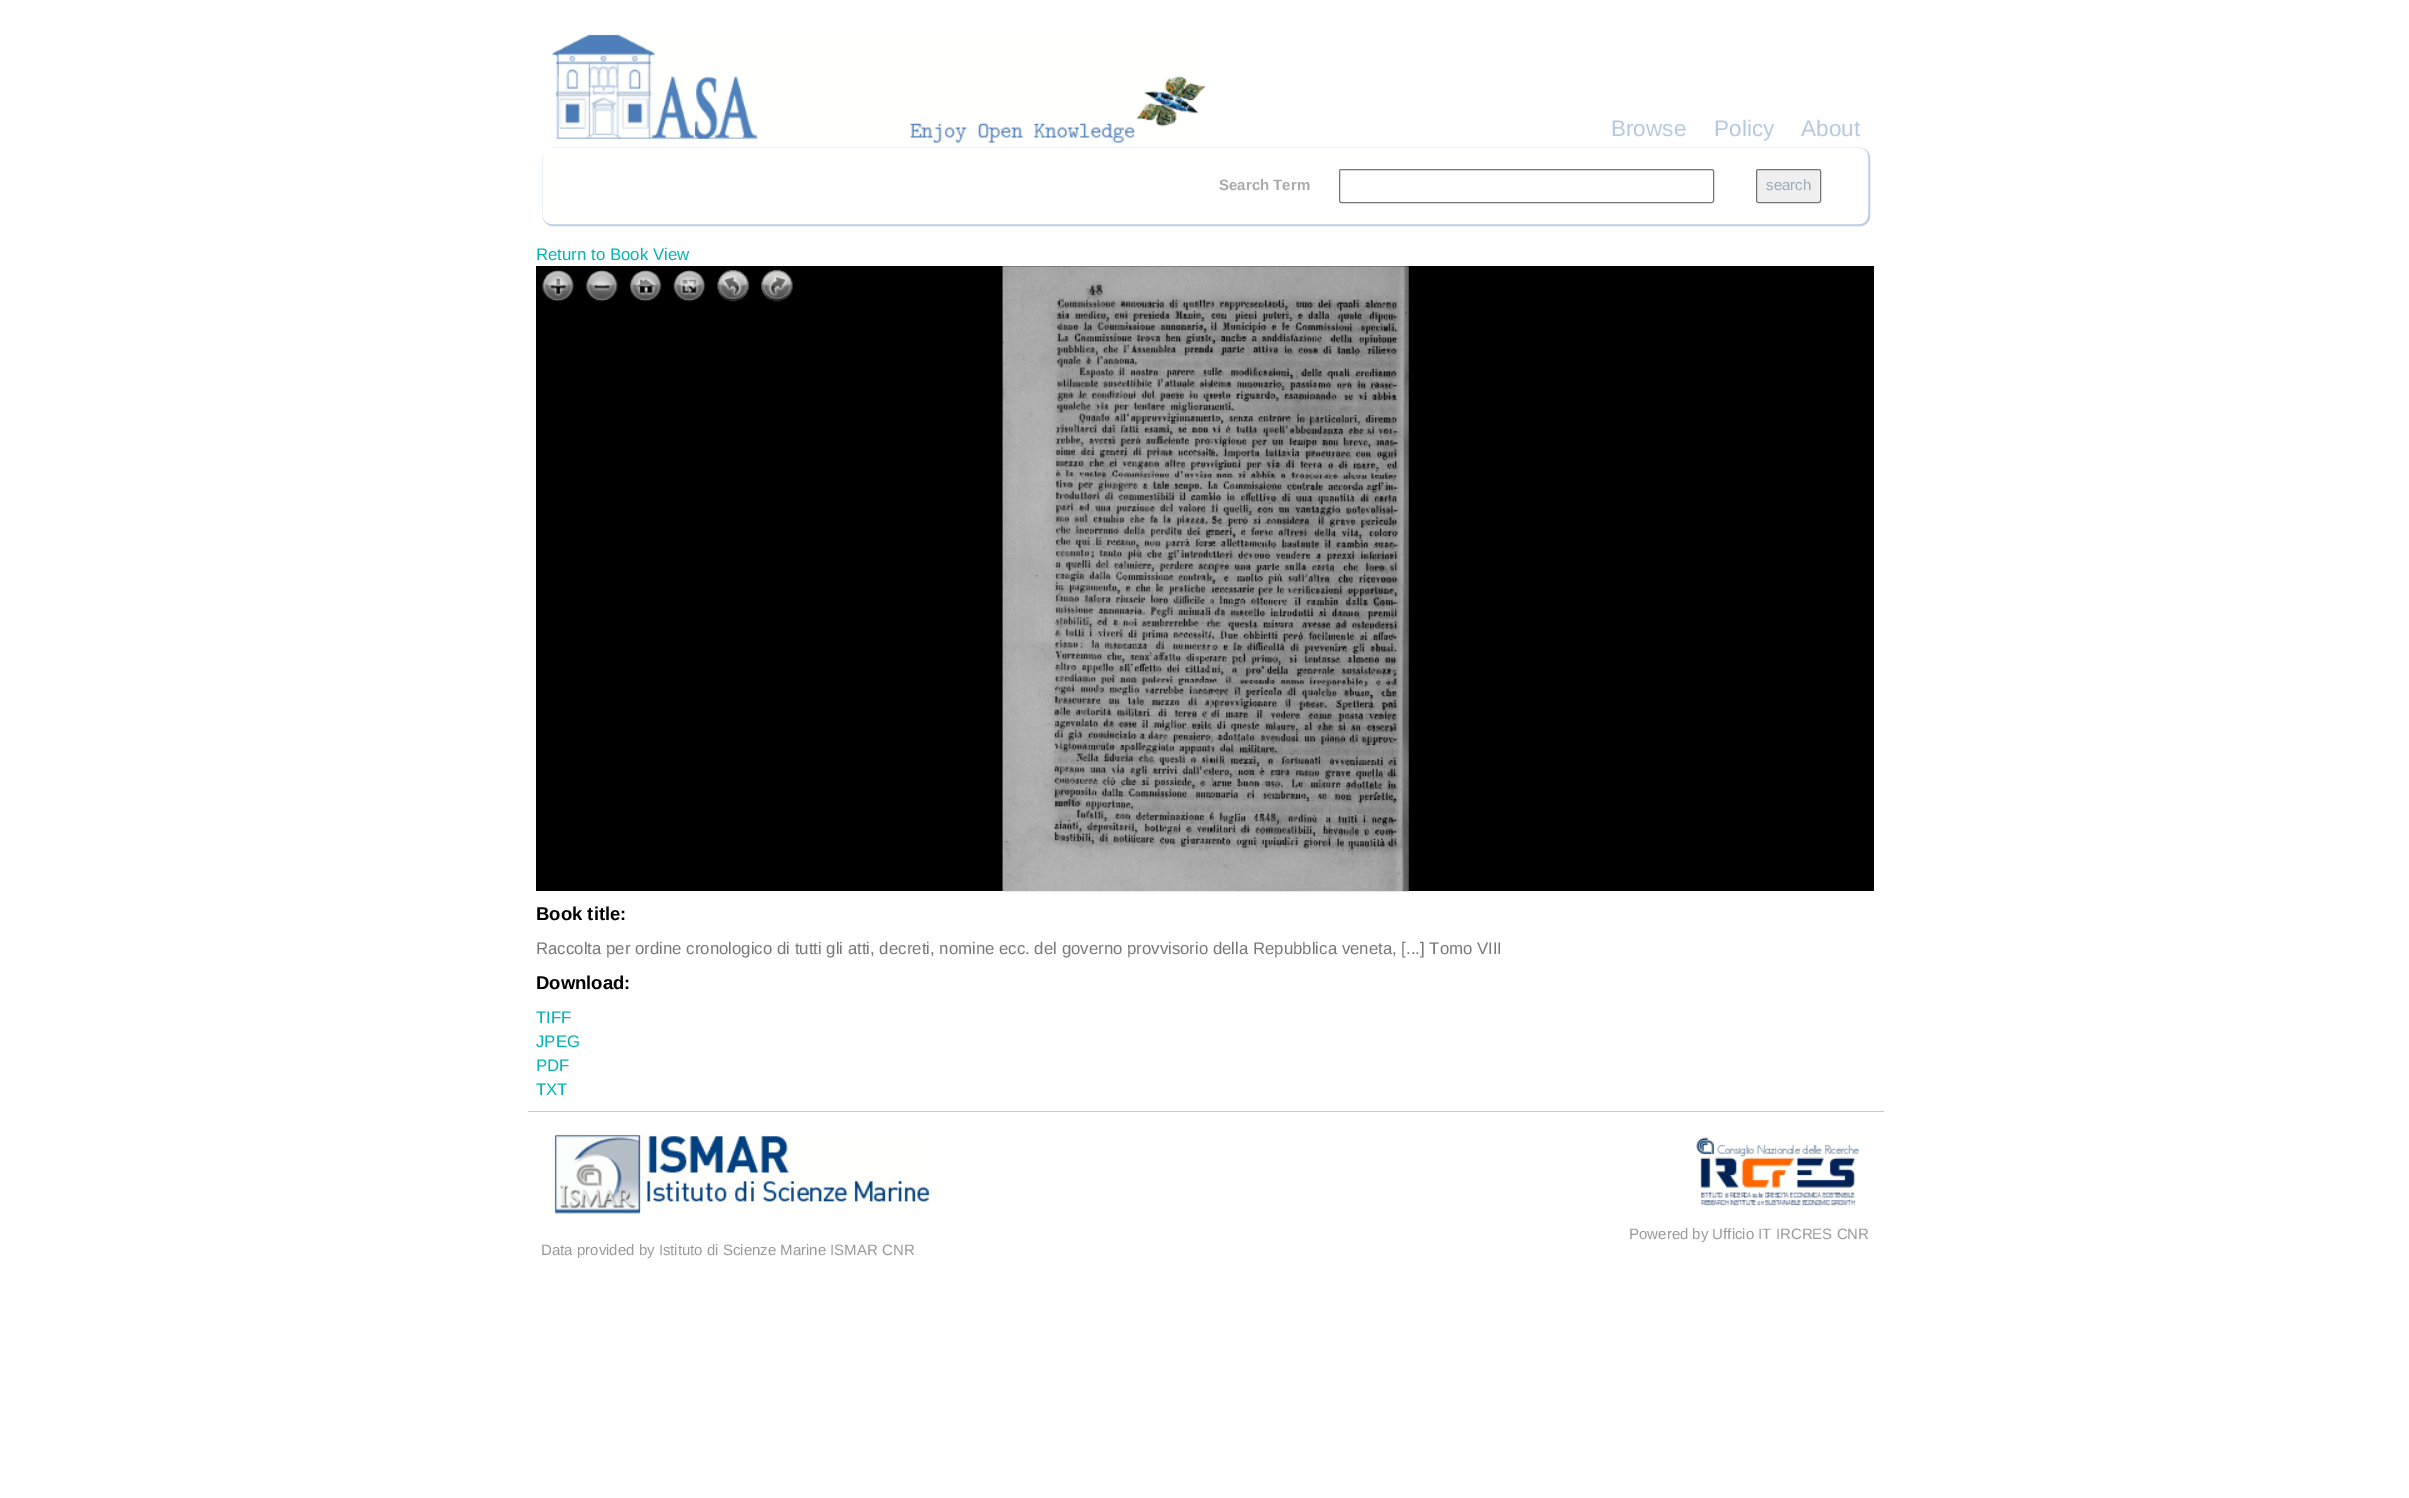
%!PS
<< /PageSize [2409 1498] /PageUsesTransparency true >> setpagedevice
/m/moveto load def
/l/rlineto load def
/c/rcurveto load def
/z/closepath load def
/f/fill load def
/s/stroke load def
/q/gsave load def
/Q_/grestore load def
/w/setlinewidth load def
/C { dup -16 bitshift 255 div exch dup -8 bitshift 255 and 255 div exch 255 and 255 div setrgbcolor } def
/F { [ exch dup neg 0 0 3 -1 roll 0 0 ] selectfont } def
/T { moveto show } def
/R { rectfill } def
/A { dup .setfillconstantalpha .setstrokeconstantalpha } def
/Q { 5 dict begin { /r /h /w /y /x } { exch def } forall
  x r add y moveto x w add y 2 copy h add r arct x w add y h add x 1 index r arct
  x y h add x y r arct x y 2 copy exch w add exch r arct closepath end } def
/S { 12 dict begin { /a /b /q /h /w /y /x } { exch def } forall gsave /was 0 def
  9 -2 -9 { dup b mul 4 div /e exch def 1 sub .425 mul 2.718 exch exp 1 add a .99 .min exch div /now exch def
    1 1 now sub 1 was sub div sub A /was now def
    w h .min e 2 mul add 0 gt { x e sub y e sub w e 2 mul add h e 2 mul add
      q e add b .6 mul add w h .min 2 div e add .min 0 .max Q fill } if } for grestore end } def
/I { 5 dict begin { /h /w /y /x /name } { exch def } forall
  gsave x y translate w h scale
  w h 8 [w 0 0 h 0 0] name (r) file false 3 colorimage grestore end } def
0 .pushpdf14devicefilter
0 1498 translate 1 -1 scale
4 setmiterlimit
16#FFFFFF C
0 0 2409 1498 R
(1.rgb) 552 34 654 110 I
/LiberationSans-Regular 22.5 F
16#B5C9E3 C
(Browse) 1611 136 T
(Policy) 1714 136 T
(About) 1801 136 T
q
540 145 m 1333 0 l 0 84 l -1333 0 l z 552 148 m 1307 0 l 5 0 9 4 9 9 c 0 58 l 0 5 -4 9 -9 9 c -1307 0 l -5 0 -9 -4 -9 -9 c 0 -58 l 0 -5 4 -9 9 -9 c z eoclip newpath
543 148 1327 78 10 .5 1 S
Q_
16#FFFFFD C
13 w
549.5 154.5 1312 63 2.5 Q s
/LiberationSans-Bold 15 F
16#AAAAAA C
(Search Term) 1219 190 T
16#767676 C
1 w
1339.5 169.5 374 33 2 Q s
16#EFEFEF C
1756.5 169.5 64 33 2 Q q f Q_
16#767676 C
s
/LiberationSans-Regular 15 F
16#96ACBB C
(search) 1766 190 T
/LiberationSans-Regular 16.8 F
16#00B3B3 C
(Return to Book View) 536 260 T
16#000000 C
536 266 1338 625 R
(2.rgb) 1002 266 407 626 I
(3.rgb) 542 270 32 32 I
(4.rgb) 542 270 32 31 I
(5.rgb) 586 270 32 32 I
(6.rgb) 586 270 32 31 I
(7.rgb) 630 270 32 32 I
(8.rgb) 630 270 32 31 I
(9.rgb) 673 270 33 32 I
(10.rgb) 673 270 32 31 I
(11.rgb) 717 269 32 33 I
(12.rgb) 717 270 32 32 I
(13.rgb) 761 269 32 33 I
(14.rgb) 761 270 32 32 I
/LiberationSans-Bold 18.5 F
(Book title:) 536 920 T
/LiberationSans-Regular 16.8 F
16#777777 C
(Raccolta per ordine cronologico di tutti gli atti, decreti, nomine ecc. del governo provvisorio della Repubblica veneta, [...] Tomo VIII) 536 954 T
/LiberationSans-Bold 18.5 F
16#000000 C
(Download:) 536 989 T
/LiberationSans-Regular 16.8 F
16#00B3B3 C
(TIFF) 536 1023 T
(JPEG) 536 1047 T
(PDF) 536 1071 T
(TXT) 536 1095 T
16#CCCCCC C
528 1111 1356 1 R
(15.rgb) 1696 1137 163 69 I
/LiberationSans-Regular 15 F
16#999999 C
(Powered by Ufficio IT IRCRES CNR) 1629 1239 T
(16.rgb) 551 1134 379 80 I
(Data provided by Istituto di Scienze Marine ISMAR CNR) 541 1255 T
.poppdf14devicefilter showpage
